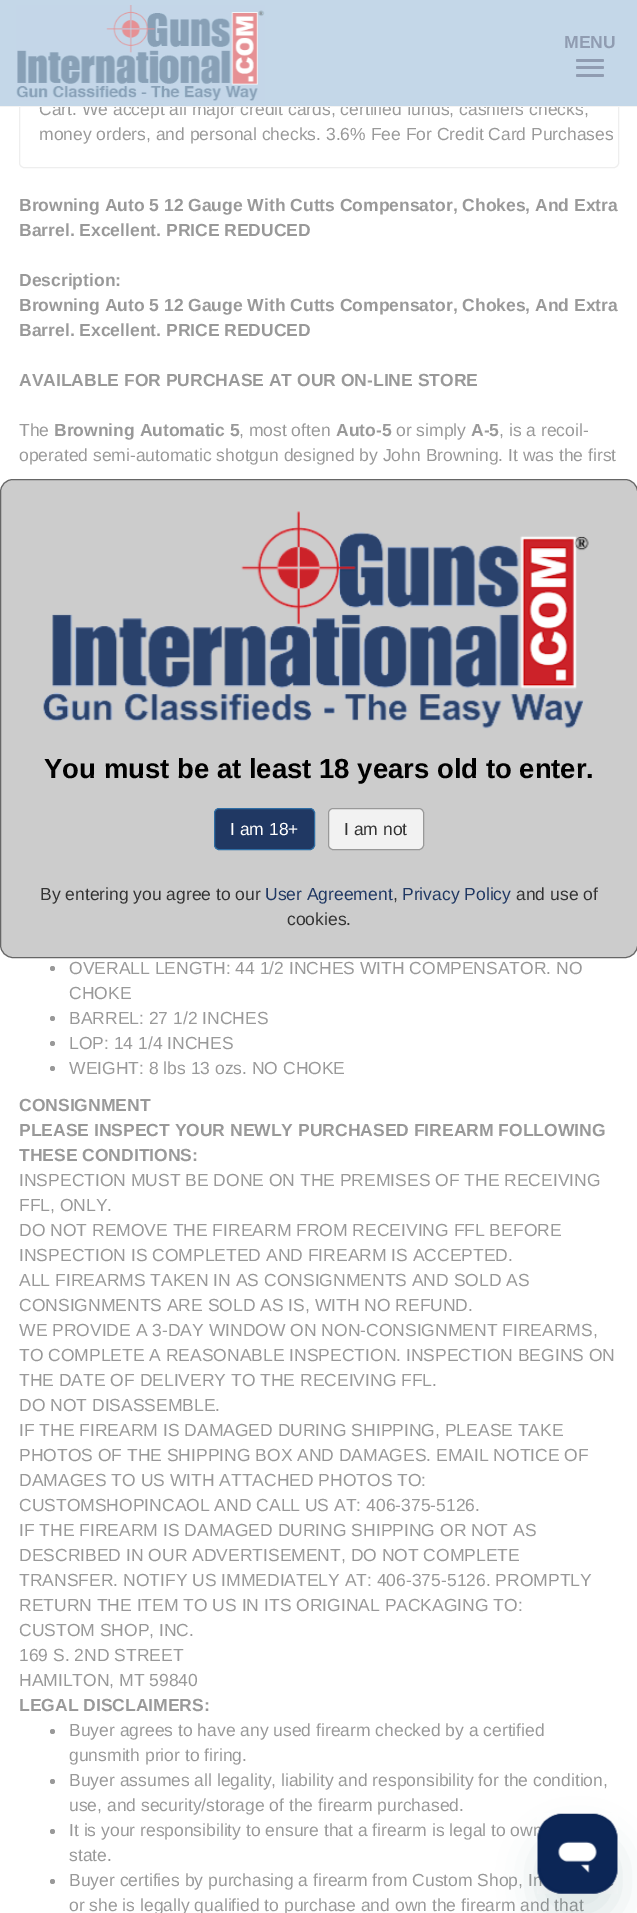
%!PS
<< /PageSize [637 1913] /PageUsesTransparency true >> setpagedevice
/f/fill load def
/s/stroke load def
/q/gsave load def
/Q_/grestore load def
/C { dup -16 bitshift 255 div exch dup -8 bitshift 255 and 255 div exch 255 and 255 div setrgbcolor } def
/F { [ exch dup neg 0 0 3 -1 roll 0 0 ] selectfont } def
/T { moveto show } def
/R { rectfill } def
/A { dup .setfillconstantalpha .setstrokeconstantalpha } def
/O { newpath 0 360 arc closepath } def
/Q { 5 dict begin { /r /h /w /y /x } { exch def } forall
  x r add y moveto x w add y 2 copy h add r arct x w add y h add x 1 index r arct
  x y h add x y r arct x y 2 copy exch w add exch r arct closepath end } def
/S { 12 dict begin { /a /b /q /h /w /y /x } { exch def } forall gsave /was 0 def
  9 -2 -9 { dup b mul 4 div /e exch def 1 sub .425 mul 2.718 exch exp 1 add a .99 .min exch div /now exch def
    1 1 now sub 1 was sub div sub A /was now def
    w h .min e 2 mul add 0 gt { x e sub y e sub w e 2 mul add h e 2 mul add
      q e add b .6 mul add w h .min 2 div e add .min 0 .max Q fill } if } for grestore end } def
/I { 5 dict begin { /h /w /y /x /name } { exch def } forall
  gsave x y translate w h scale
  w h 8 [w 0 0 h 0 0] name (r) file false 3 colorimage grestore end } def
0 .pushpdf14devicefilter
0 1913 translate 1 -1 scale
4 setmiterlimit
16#FFFFFF C
0 0 637 1913 R
16#EEEEEE C
19.5 -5.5 599 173 4.5 Q s
/LiberationSans-Regular 17.5 F
16#999999 C
(Cart. We accept all major credit cards, certified funds, cashiers checks,) 39 115 T
16#C4D7E8 C
0 0 637 106 R
16#F3F3F3 C
0 106 637 1 R
(1.rgb) 16 5 249 96 I
/LiberationSans-Bold 17.5 F
16#909CB1 C
(MENU) 564 48 T
576 59 28 3 1.5 Q f
576 66 28 3 1.5 Q f
576 74 28 3 1.5 Q f
/LiberationSans-Regular 17.5 F
16#999999 C
(money orders, and personal checks. 3.6% Fee For Credit Card Purchases) 39 140 T
/LiberationSans-Bold 17.5 F
(Browning Auto 5 12 Gauge With Cutts Compensator, Chokes, And Extra) 19 211 T
(Barrel. Excellent. PRICE REDUCED) 19 236 T
(Description:) 19 286 T
(Browning Auto 5 12 Gauge With Cutts Compensator, Chokes, And Extra) 19 311 T
(Barrel. Excellent. PRICE REDUCED) 19 336 T
(AVAILABLE FOR PURCHASE AT OUR ON-LINE STORE) 19 386 T
/LiberationSans-Regular 17.5 F
(The) 19 436 T
/LiberationSans-Bold 17.5 F
(Browning Automatic 5) 54 436 T
/LiberationSans-Regular 17.5 F
(, most often) 239 436 T
/LiberationSans-Bold 17.5 F
(Auto-5) 336 436 T
/LiberationSans-Regular 17.5 F
(or simply) 396 436 T
/LiberationSans-Bold 17.5 F
(A-5) 471 436 T
/LiberationSans-Regular 17.5 F
(, is a recoil-) 499 436 T
(operated semi-automatic shotgun designed by John Browning. It was the first) 19 461 T
52.5 968.5 2.5 O f
(OVERALL LENGTH: 44 1/2 INCHES WITH COMPENSATOR. NO) 69 974 T
(CHOKE) 69 999 T
52.5 1018.5 2.5 O f
(BARREL: 27 1/2 INCHES) 69 1024 T
52.5 1043.5 2.5 O f
(LOP: 14 1/4 INCHES) 69 1049 T
52.5 1068.5 2.5 O f
(WEIGHT: 8 lbs 13 ozs. NO CHOKE) 69 1074 T
/LiberationSans-Bold 17.5 F
(CONSIGNMENT) 19 1111 T
(PLEASE INSPECT YOUR NEWLY PURCHASED FIREARM FOLLOWING) 19 1136 T
(THESE CONDITIONS:) 19 1161 T
/LiberationSans-Regular 17.5 F
(INSPECTION MUST BE DONE ON THE PREMISES OF THE RECEIVING) 19 1186 T
(FFL, ONLY.) 19 1211 T
(DO NOT REMOVE THE FIREARM FROM RECEIVING FFL BEFORE) 19 1236 T
(INSPECTION IS COMPLETED AND FIREARM IS ACCEPTED.) 19 1261 T
(ALL FIREARMS TAKEN IN AS CONSIGNMENTS AND SOLD AS) 19 1286 T
(CONSIGNMENTS ARE SOLD AS IS, WITH NO REFUND.) 19 1311 T
(WE PROVIDE A 3-DAY WINDOW ON NON-CONSIGNMENT FIREARMS,) 19 1336 T
(TO COMPLETE A REASONABLE INSPECTION. INSPECTION BEGINS ON) 19 1361 T
(THE DATE OF DELIVERY TO THE RECEIVING FFL.) 19 1386 T
(DO NOT DISASSEMBLE.) 19 1411 T
(IF THE FIREARM IS DAMAGED DURING SHIPPING, PLEASE TAKE) 19 1436 T
(PHOTOS OF THE SHIPPING BOX AND DAMAGES. EMAIL NOTICE OF) 19 1461 T
(DAMAGES TO US WITH ATTACHED PHOTOS TO:) 19 1486 T
(CUSTOMSHOPINCAOL AND CALL US AT: 406-375-5126.) 19 1511 T
(IF THE FIREARM IS DAMAGED DURING SHIPPING OR NOT AS) 19 1536 T
(DESCRIBED IN OUR ADVERTISEMENT, DO NOT COMPLETE) 19 1561 T
(TRANSFER. NOTIFY US IMMEDIATELY AT: 406-375-5126. PROMPTLY) 19 1586 T
(RETURN THE ITEM TO US IN ITS ORIGINAL PACKAGING TO:) 19 1611 T
(CUSTOM SHOP, INC.) 19 1636 T
(169 S. 2ND STREET) 19 1661 T
(HAMILTON, MT 59840) 19 1686 T
/LiberationSans-Bold 17.5 F
(LEGAL DISCLAIMERS:) 19 1711 T
52.5 1731.5 2.5 O f
/LiberationSans-Regular 17.5 F
(Buyer agrees to have any used firearm checked by a certified) 69 1736 T
(gunsmith prior to firing.) 69 1761 T
52.5 1781.5 2.5 O f
(Buyer assumes all legality, liability and responsibility for the condition,) 69 1786 T
(use, and security/storage of the firearm purchased.) 69 1811 T
52.5 1831.5 2.5 O f
(It is your responsibility to ensure that a firearm is legal to own) 69 1836 T
(state.) 69 1861 T
52.5 1881.5 2.5 O f
(Buyer certifies by purchasing a firearm from Custom Shop, In) 69 1886 T
(or she is legally qualified to purchase and own the firearm and that) 69 1911 T
16#CCCCCC C
.5 479.5 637 478 12.5 Q q f Q_
16#666666 C
s
(2.rgb) 43 511 546 218 I
/LiberationSans-Bold 27.5 F
16#000000 C
(You must be at least 18 years old to enter.) 44 778 T
16#203863 C
214.5 808.5 100 41 4.5 Q q f Q_
16#2E6DA4 C
s
/LiberationSans-Regular 17.5 F
16#FFFFFF C
(I am 18+) 230 835 T
16#F2F2F2 C
328.5 808.5 95 41 4.5 Q q f Q_
16#999999 C
s
16#333333 C
(I am not) 344 835 T
(By entering you agree to our) 40 900 T
16#203863 C
(User Agreement) 265 900 T
16#333333 C
(,) 393 900 T
16#203863 C
(Privacy Policy) 402 900 T
16#333333 C
(and use of) 516 900 T
(cookies.) 287 925 T
16#17494D C
538 1839 80 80 25 19 .15 S
(3.rgb) 537 1813 81 81 I
.poppdf14devicefilter showpage
